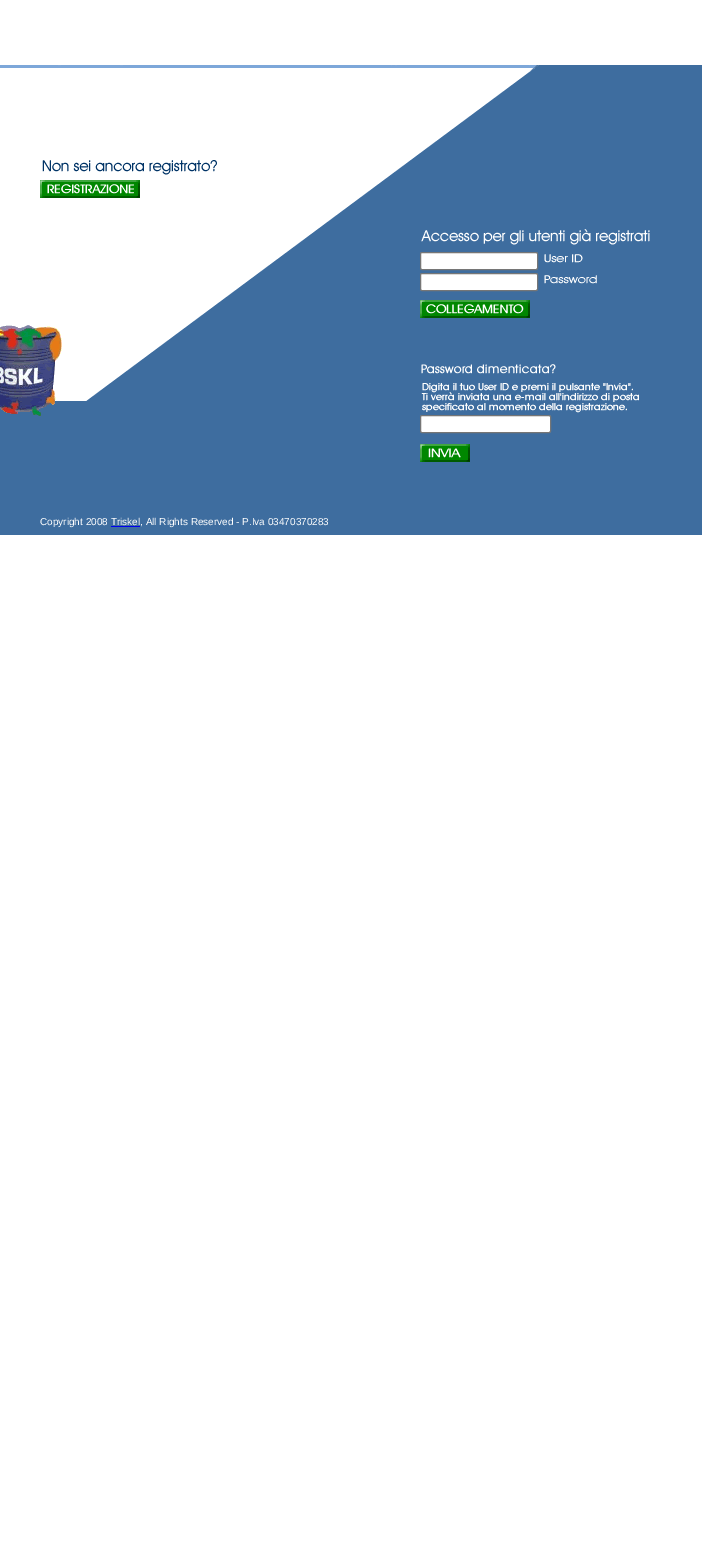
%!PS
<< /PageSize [702 1544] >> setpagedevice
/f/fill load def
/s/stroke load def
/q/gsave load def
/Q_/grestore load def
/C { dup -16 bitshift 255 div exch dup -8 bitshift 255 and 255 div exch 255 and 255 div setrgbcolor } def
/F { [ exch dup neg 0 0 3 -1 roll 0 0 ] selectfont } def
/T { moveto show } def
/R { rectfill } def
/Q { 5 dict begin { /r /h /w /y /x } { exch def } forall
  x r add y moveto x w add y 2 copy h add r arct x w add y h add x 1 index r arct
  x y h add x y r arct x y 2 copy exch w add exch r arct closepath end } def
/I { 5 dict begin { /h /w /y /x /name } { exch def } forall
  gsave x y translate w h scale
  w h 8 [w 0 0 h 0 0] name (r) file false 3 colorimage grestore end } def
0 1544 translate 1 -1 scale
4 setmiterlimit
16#FFFFFF C
0 0 702 1544 R
(1.rgb) 0 65 702 470 I
(2.rgb) 42 160 175 15 I
(3.rgb) 40 180 100 18 I
(4.rgb) 421 229 229 16 I
420.5 252.5 117 17 1.5 Q q f Q_
16#767676 C
s
(5.rgb) 544 254 39 9 I
16#FFFFFF C
420.5 273.5 117 17 1.5 Q q f Q_
16#767676 C
s
(6.rgb) 544 275 53 9 I
(7.rgb) 420 300 110 18 I
(8.rgb) 421 364 218 49 I
16#FFFFFF C
420.5 415.5 130 17 1.5 Q q f Q_
16#767676 C
s
(9.rgb) 420 444 50 18 I
/LiberationSans-Regular 10 F
16#FFFFFF C
(Copyright 2008 Triskel, All Rights Reserved - P.Iva 03470370283) 40 525 T
16#0000EE C
111 526 29 1 R
showpage
